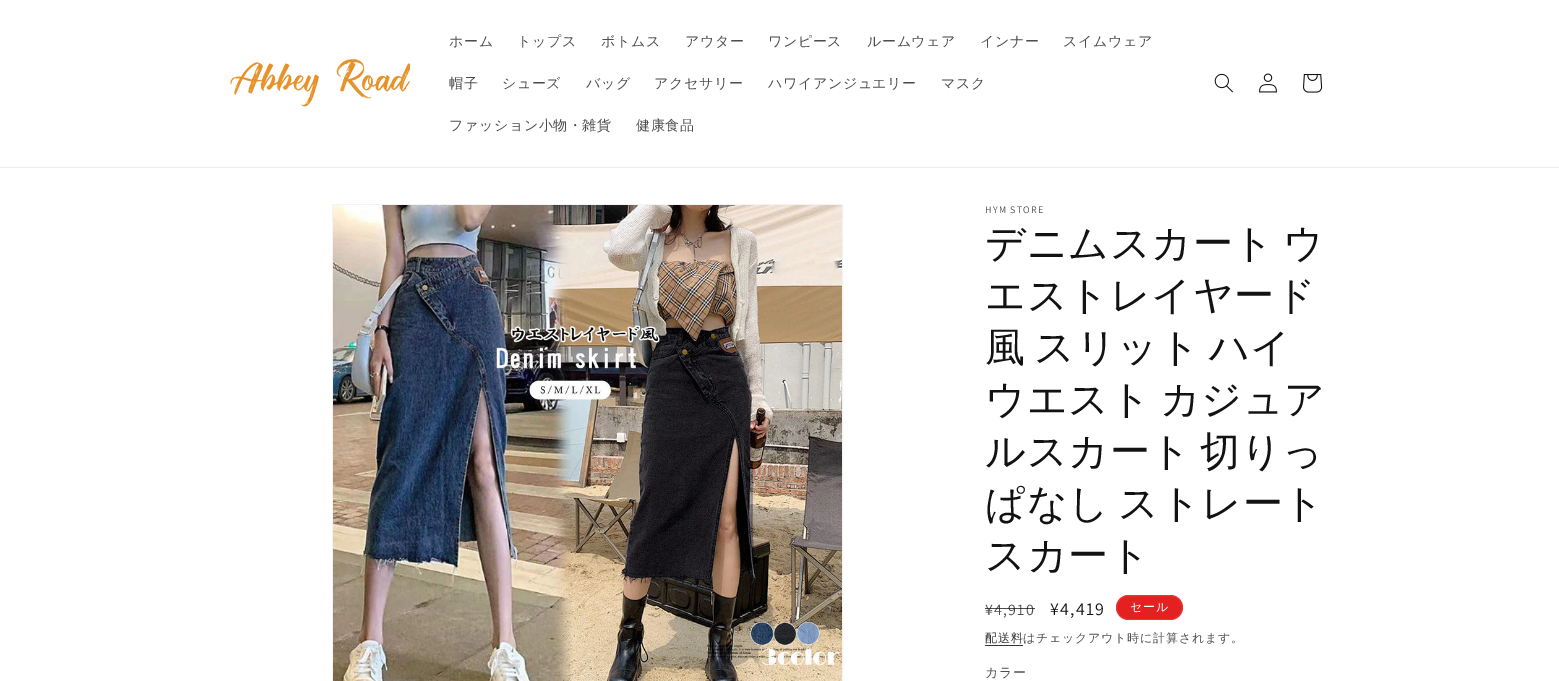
%!PS
<< /PageSize [1559 681] /PageUsesTransparency true >> setpagedevice
/m/moveto load def
/f/fill load def
/s/stroke load def
/C { dup -16 bitshift 255 div exch dup -8 bitshift 255 and 255 div exch 255 and 255 div setrgbcolor } def
/F { [ exch dup neg 0 0 3 -1 roll 0 0 ] selectfont } def
/R { rectfill } def
/A { dup .setfillconstantalpha .setstrokeconstantalpha } def
/Q { 5 dict begin { /r /h /w /y /x } { exch def } forall
  x r add y moveto x w add y 2 copy h add r arct x w add y h add x 1 index r arct
  x y h add x y r arct x y 2 copy exch w add exch r arct closepath end } def
/I { 5 dict begin { /h /w /y /x /name } { exch def } forall
  gsave x y translate w h scale
  w h 8 [w 0 0 h 0 0] name (r) file false 3 colorimage grestore end } def
0 .pushpdf14devicefilter
0 681 translate 1 -1 scale
4 setmiterlimit
16#FFFFFF C
0 0 1559 681 R
16#ECECEC C
0 167 1559 1 R
(1.rgb) 230 59 180 48 I
/WenQuanYiZenHei-Medium 14 F
16#4D4D4D C
449 46 m .6 0 (ホーム) ashow
517 46 m .6 0 (トップス) ashow
601 46 m .6 0 (ボトムス) ashow
685 46 m .6 0 (アウター) ashow
768 46 m .6 0 (ワンピース) ashow
867 46 m .6 0 (ルームウェア) ashow
980 46 m .6 0 (インナー) ashow
1063 46 m .6 0 (スイムウェア) ashow
449 88 m .6 0 (帽子) ashow
502 88 m .6 0 (シューズ) ashow
586 88 m .6 0 (バッグ) ashow
654 88 m .6 0 (アクセサリー) ashow
768 88 m .6 0 (ハワイアンジュエリー) ashow
941 88 m .6 0 (マスク) ashow
449 130 m .6 0 (ファッション小物・雑貨) ashow
636 130 m .6 0 (健康食品) ashow
(2.rgb) 1214 73 19 20 I
(3.rgb) 1259 73 18 20 I
(4.rgb) 1303 74 20 19 I
16#F3F3F3 C
332.5 204.5 510 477 rectstroke
(5.rgb) 333 205 509 476 I
/Assistant-Regular 10 F
16#4D4D4D C
985 213 m 1.25 0 (HYM STORE) ashow
/WenQuanYiZenHei-Medium 40 F
16#121212 C
985 257 m -4 0 32 .6 0 (デニムスカート ウ) awidthshow
985 309 m .6 0 (エストレイヤード) ashow
985 361 m -4 0 32 .6 0 (風 スリット ハイ) awidthshow
985 413 m -4 0 32 .6 0 (ウエスト カジュア) awidthshow
985 465 m -4 0 32 .6 0 (ルスカート 切りっ) awidthshow
985 517 m -4 0 32 .6 0 (ぱなし ストレート) awidthshow
985 569 m .6 0 (スカート) ashow
/Assistant-Regular 16 F
16#4D4D4D C
985 615 m 1.25 0 (¥4,910) ashow
0.75 A
16#121212 C
985 608 50 1 R
/Assistant-Regular 18 F
1 A
1050 615 m 1.25 0 (¥4,419) ashow
16#E22120 C
1116 595 67 25 12.5 Q f
0.1 A
16#FFFFFF C
1116.5 595.5 66 24 12 Q s
/WenQuanYiZenHei-Medium 12 F
1 A
1130 611 m 1 0 (セール) ashow
16#363636 C
985 642 m .75 0 (配送料) ashow
985 645 38 1 R
16#4D4D4D C
1023 642 m .75 0 (はチェックアウト時に計算されます。) ashow
/WenQuanYiZenHei-Medium 13 F
985 677 m .5 0 (カラー) ashow
.poppdf14devicefilter showpage
